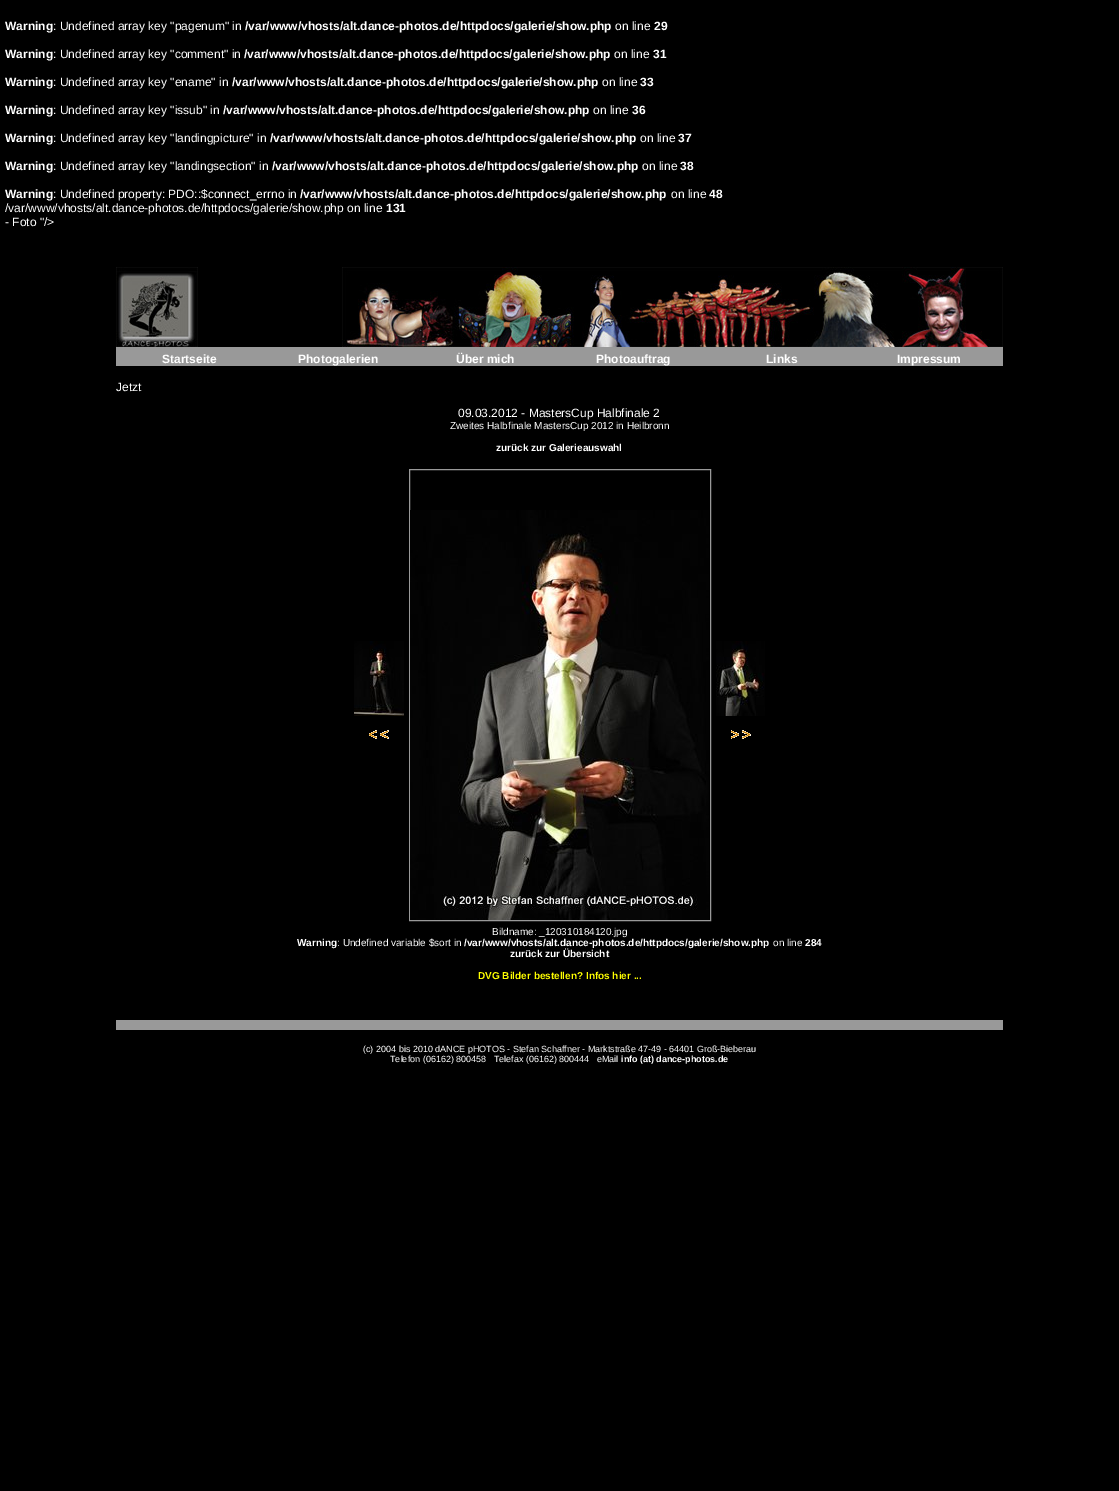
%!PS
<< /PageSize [1119 1491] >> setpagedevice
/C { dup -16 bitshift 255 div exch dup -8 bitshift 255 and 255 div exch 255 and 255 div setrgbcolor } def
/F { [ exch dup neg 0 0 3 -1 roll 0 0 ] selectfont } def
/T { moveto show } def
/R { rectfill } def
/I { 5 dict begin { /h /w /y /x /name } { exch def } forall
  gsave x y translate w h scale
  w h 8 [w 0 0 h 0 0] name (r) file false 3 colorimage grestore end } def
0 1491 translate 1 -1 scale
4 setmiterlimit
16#000000 C
0 0 1119 1491 R
/LiberationSans-Bold 12 F
16#FFFFFF C
(Warning) 5 30 T
/LiberationSans-Regular 12 F
(: Undefined array key "pagenum" in) 53 30 T
/LiberationSans-Bold 12 F
(/var/www/vhosts/alt.dance-photos.de/httpdocs/galerie/show.php) 245 30 T
/LiberationSans-Regular 12 F
(on line) 615 30 T
/LiberationSans-Bold 12 F
(29) 654 30 T
(Warning) 5 58 T
/LiberationSans-Regular 12 F
(: Undefined array key "comment" in) 53 58 T
/LiberationSans-Bold 12 F
(/var/www/vhosts/alt.dance-photos.de/httpdocs/galerie/show.php) 244 58 T
/LiberationSans-Regular 12 F
(on line) 614 58 T
/LiberationSans-Bold 12 F
(31) 653 58 T
(Warning) 5 86 T
/LiberationSans-Regular 12 F
(: Undefined array key "ename" in) 53 86 T
/LiberationSans-Bold 12 F
(/var/www/vhosts/alt.dance-photos.de/httpdocs/galerie/show.php) 232 86 T
/LiberationSans-Regular 12 F
(on line) 602 86 T
/LiberationSans-Bold 12 F
(33) 640 86 T
(Warning) 5 114 T
/LiberationSans-Regular 12 F
(: Undefined array key "issub" in) 53 114 T
/LiberationSans-Bold 12 F
(/var/www/vhosts/alt.dance-photos.de/httpdocs/galerie/show.php) 223 114 T
/LiberationSans-Regular 12 F
(on line) 593 114 T
/LiberationSans-Bold 12 F
(36) 632 114 T
(Warning) 5 142 T
/LiberationSans-Regular 12 F
(: Undefined array key "landingpicture" in) 53 142 T
/LiberationSans-Bold 12 F
(/var/www/vhosts/alt.dance-photos.de/httpdocs/galerie/show.php) 270 142 T
/LiberationSans-Regular 12 F
(on line) 640 142 T
/LiberationSans-Bold 12 F
(37) 678 142 T
(Warning) 5 170 T
/LiberationSans-Regular 12 F
(: Undefined array key "landingsection" in) 53 170 T
/LiberationSans-Bold 12 F
(/var/www/vhosts/alt.dance-photos.de/httpdocs/galerie/show.php) 272 170 T
/LiberationSans-Regular 12 F
(on line) 642 170 T
/LiberationSans-Bold 12 F
(38) 680 170 T
(Warning) 5 198 T
/LiberationSans-Regular 12 F
(: Undefined property: PDO::$connect_errno in) 53 198 T
/LiberationSans-Bold 12 F
(/var/www/vhosts/alt.dance-photos.de/httpdocs/galerie/show.php) 300 198 T
/LiberationSans-Regular 12 F
(on line) 671 198 T
/LiberationSans-Bold 12 F
(48) 709 198 T
/LiberationSans-Regular 12 F
(/var/www/vhosts/alt.dance-photos.de/httpdocs/galerie/show.php on line) 5 212 T
/LiberationSans-Bold 12 F
(131) 386 212 T
/LiberationSans-Regular 12 F
(- Foto "/>) 5 226 T
(1.rgb) 116 267 82 80 I
(2.rgb) 342 267 661 80 I
16#999999 C
116 347 887 19 R
/LiberationSans-Bold 12 F
16#FFFFFF C
(Startseite) 162 363 T
(Photogalerien) 298 363 T
(Über mich) 456 363 T
(Photoauftrag) 596 363 T
(Links) 766 363 T
(Impressum) 897 363 T
/LiberationSans-Regular 12 F
(Jetzt) 116 391 T
(09.03.2012 - MastersCup Halbfinale 2) 458 417 T
/LiberationSans-Regular 10 F
(Zweites Halbfinale MastersCup 2012 in Heilbronn) 450 429 T
/LiberationSans-Bold 10 F
(zurück zur Galerieauswahl) 496 451 T
(3.rgb) 354 641 50 75 I
(4.rgb) 369 730 20 9 I
16#999999 C
409.5 469.5 301 451 rectstroke
(5.rgb) 410 510 299 410 I
(6.rgb) 716 641 49 75 I
(7.rgb) 731 730 20 9 I
/LiberationSans-Regular 10 F
16#FFFFFF C
(Bildname: _120310184120.jpg) 492 935 T
/LiberationSans-Bold 10 F
(Warning) 297 946 T
/LiberationSans-Regular 10 F
(: Undefined variable $sort in) 337 946 T
/LiberationSans-Bold 10 F
(/var/www/vhosts/alt.dance-photos.de/httpdocs/galerie/show.php) 464 946 T
/LiberationSans-Regular 10 F
(on line) 773 946 T
/LiberationSans-Bold 10 F
(284) 805 946 T
(zurück zur Übersicht) 510 957 T
16#FFFF00 C
(DVG Bilder bestellen? Infos hier ...) 478 979 T
16#999999 C
116 1020 887 10 R
/LiberationSans-Regular 9 F
16#FFFFFF C
(\(c\) 2004 bis 2010 dANCE pHOTOS - Stefan Schaffner - Marktstraße 47-49 - 64401 Groß-Bieberau) 363 1052 T
(Telefon \(06162\) 800458   Telefax \(06162\) 800444   eMail) 390 1062 T
/LiberationSans-Bold 9 F
(info \(at\) dance-photos.de) 621 1062 T
showpage
